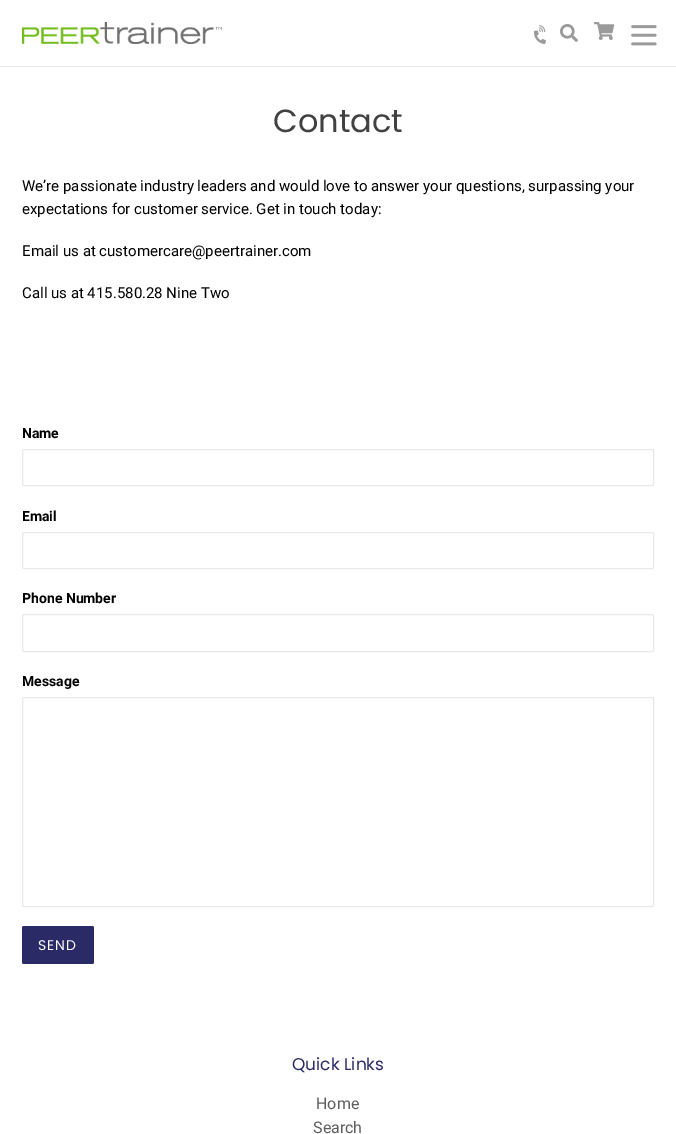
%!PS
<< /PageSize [676 1134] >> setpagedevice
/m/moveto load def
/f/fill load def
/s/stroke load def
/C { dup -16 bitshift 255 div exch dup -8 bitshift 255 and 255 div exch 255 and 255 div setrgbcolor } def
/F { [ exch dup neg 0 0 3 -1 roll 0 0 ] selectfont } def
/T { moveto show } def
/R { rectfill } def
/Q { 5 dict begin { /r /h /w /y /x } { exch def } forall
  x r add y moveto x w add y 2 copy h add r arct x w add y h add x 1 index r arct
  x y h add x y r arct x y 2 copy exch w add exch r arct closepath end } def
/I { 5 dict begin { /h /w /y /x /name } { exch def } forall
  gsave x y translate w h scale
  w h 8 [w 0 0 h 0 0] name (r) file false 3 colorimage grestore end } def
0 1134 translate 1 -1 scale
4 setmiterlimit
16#FFFFFF C
0 0 676 1134 R
16#E8E9EB C
0 66 676 1 R
(1.rgb) 22 22 200 22 I
(2.rgb) 534 25 12 19 I
(3.rgb) 560 24 18 18 I
(4.rgb) 594 22 21 18 I
(5.rgb) 631 25 26 21 I
/Poppins-Regular 32 F
16#414141 C
(Contact) 273 132 T
/Roboto-Regular 15 F
16#000000 C
(We’re passionate industry leaders and would love to answer your questions, surpassing your) 22 191 T
(expectations for customer service. Get in touch today:) 22 214 T
(Email us at customercare@peertrainer.com) 22 256 T
(Call us at 415.580.28 Nine Two) 22 298 T
/Roboto-Bold 14 F
(Name) 22 438 T
16#E8E9EB C
22.5 449.5 631 36 1.5 Q s
16#000000 C
(Email) 22 521 T
16#E8E9EB C
22.5 532.5 631 36 1.5 Q s
16#000000 C
(Phone Number) 22 603 T
16#E8E9EB C
22.5 614.5 631 37 1.5 Q s
16#000000 C
(Message) 22 686 T
16#E8E9EB C
22.5 697.5 631 209 1.5 Q s
16#2A2A67 C
22 926 72 38 2 Q f
/Poppins-Regular 14 F
16#FFFFFF C
38 950 m 1 0 (SEND) ashow
/Poppins-Regular 17 F
16#2A2A67 C
(Quick Links) 292 1070 T
/Roboto-Regular 16 F
16#5E5E5E C
(Home) 316 1109 T
(Search) 313 1133 T
showpage
